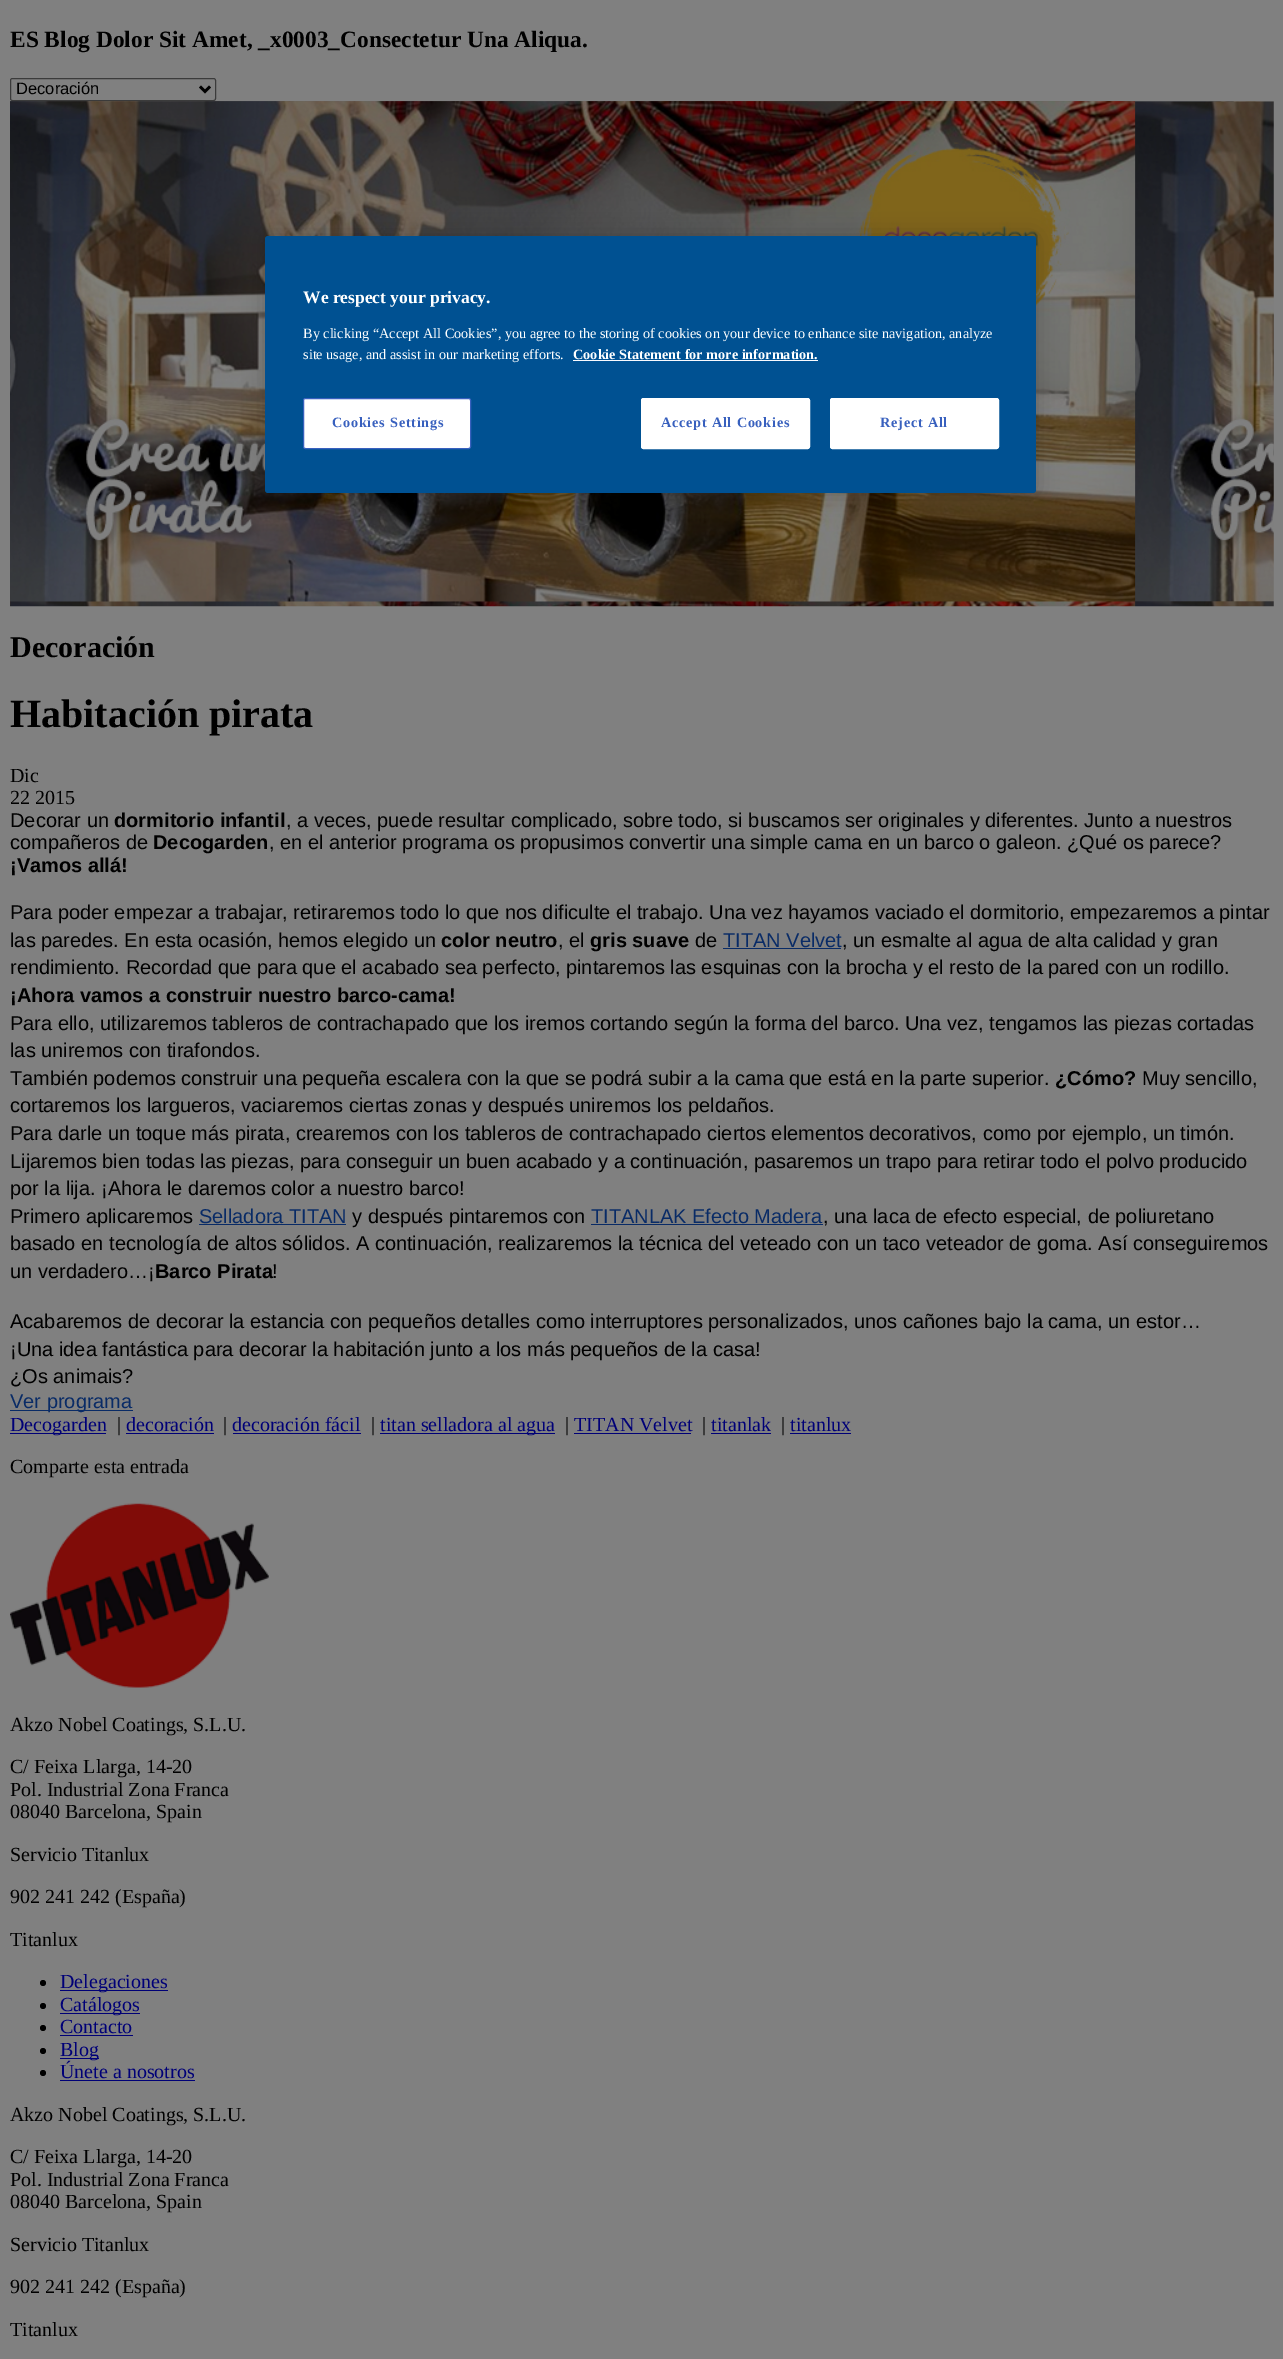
%!PS
<< /PageSize [1283 2359] /PageUsesTransparency true >> setpagedevice
/m/moveto load def
/l/rlineto load def
/f/fill load def
/s/stroke load def
/q/gsave load def
/Q_/grestore load def
/w/setlinewidth load def
/C { dup -16 bitshift 255 div exch dup -8 bitshift 255 and 255 div exch 255 and 255 div setrgbcolor } def
/F { [ exch dup neg 0 0 3 -1 roll 0 0 ] selectfont } def
/T { moveto show } def
/R { rectfill } def
/A { dup .setfillconstantalpha .setstrokeconstantalpha } def
/O { newpath 0 360 arc closepath } def
/Q { 5 dict begin { /r /h /w /y /x } { exch def } forall
  x r add y moveto x w add y 2 copy h add r arct x w add y h add x 1 index r arct
  x y h add x y r arct x y 2 copy exch w add exch r arct closepath end } def
/S { 12 dict begin { /a /b /q /h /w /y /x } { exch def } forall gsave /was 0 def
  9 -2 -9 { dup b mul 4 div /e exch def 1 sub .425 mul 2.718 exch exp 1 add a .99 .min exch div /now exch def
    1 1 now sub 1 was sub div sub A /was now def
    w h .min e 2 mul add 0 gt { x e sub y e sub w e 2 mul add h e 2 mul add
      q e add b .6 mul add w h .min 2 div e add .min 0 .max Q fill } if } for grestore end } def
/I { 5 dict begin { /h /w /y /x /name } { exch def } forall
  gsave x y translate w h scale
  w h 8 [w 0 0 h 0 0] name (r) file false 3 colorimage grestore end } def
0 .pushpdf14devicefilter
0 2359 translate 1 -1 scale
4 setmiterlimit
16#808080 C
0 0 1283 2359 R
/LiberationSerif-Bold 23.4 F
16#000000 C
(ES Blog Dolor Sit Amet, _x0003_Consectetur Una Aliqua.) 10 47 T
16#3B3B3B C
10.5 78.5 205 22 2 Q s
16#000000 C
2.5 w
200 86.5 m 5 5 l 5 -5 l s
/LiberationSans-Regular 16.5 F
(Decoración) 16 94 T
(1.rgb) 10 101 1264 506 I
(2.rgb) 10 101 1125 501 I
/LiberationSerif-Bold 30 F
(Decoración) 10 657 T
/LiberationSerif-Bold 40 F
(Habitación pirata) 10 727 T
/LiberationSerif-Regular 20 F
(Dic) 10 782 T
(22 2015) 10 804 T
/LiberationSans-Regular 20 F
(Decorar un) 10 827 T
/LiberationSans-Bold 20 F
(dormitorio infantil) 114 827 T
/LiberationSans-Regular 20 F
(, a veces, puede resultar complicado, sobre todo, si buscamos ser originales y diferentes. Junto a nuestros) 286 827 T
(compañeros de) 10 849 T
/LiberationSans-Bold 20 F
(Decogarden) 153 849 T
/LiberationSans-Regular 20 F
(, en el anterior programa os propusimos convertir una simple cama en un barco o galeon. ¿Qué os parece?) 269 849 T
/LiberationSans-Bold 20 F
(¡Vamos allá!) 10 872 T
/LiberationSans-Regular 20 F
(Para poder empezar a trabajar, retiraremos todo lo que nos dificulte el trabajo. Una vez hayamos vaciado el dormitorio, empezaremos a pintar) 10 919 T
(las paredes. En esta ocasión, hemos elegido un) 10 947 T
/LiberationSans-Bold 20 F
(color neutro) 441 947 T
/LiberationSans-Regular 20 F
(, el) 558 947 T
/LiberationSans-Bold 20 F
(gris suave) 590 947 T
/LiberationSans-Regular 20 F
(de) 695 947 T
16#092B66 C
(TITAN Velvet) 723 947 T
16#000000 C
(, un esmalte al agua de alta calidad y gran) 842 947 T
16#092B66 C
723 948 118 1 R
16#000000 C
(rendimiento. Recordad que para que el acabado sea perfecto, pintaremos las esquinas con la brocha y el resto de la pared con un rodillo.) 10 974 T
/LiberationSans-Bold 20 F
(¡Ahora vamos a construir nuestro barco-cama!) 10 1002 T
/LiberationSans-Regular 20 F
(Para ello, utilizaremos tableros de contrachapado que los iremos cortando según la forma del barco. Una vez, tengamos las piezas cortadas) 10 1030 T
(las uniremos con tirafondos.) 10 1057 T
(También podemos construir una pequeña escalera con la que se podrá subir a la cama que está en la parte superior.) 10 1085 T
/LiberationSans-Bold 20 F
(¿Cómo?) 1055 1085 T
/LiberationSans-Regular 20 F
(Muy sencillo,) 1142 1085 T
(cortaremos los largueros, vaciaremos ciertas zonas y después uniremos los peldaños.) 10 1112 T
(Para darle un toque más pirata, crearemos con los tableros de contrachapado ciertos elementos decorativos, como por ejemplo, un timón.) 10 1140 T
(Lijaremos bien todas las piezas, para conseguir un buen acabado y a continuación, pasaremos un trapo para retirar todo el polvo producido) 10 1168 T
(por la lija. ¡Ahora le daremos color a nuestro barco!) 10 1195 T
(Primero aplicaremos) 10 1223 T
16#092B66 C
(Selladora TITAN) 199 1223 T
199 1224 147 1 R
16#000000 C
(y después pintaremos con) 352 1223 T
16#092B66 C
(TITANLAK Efecto Madera) 591 1223 T
16#000000 C
(, una laca de efecto especial, de poliuretano) 823 1223 T
16#092B66 C
591 1224 232 1 R
16#000000 C
(basado en tecnología de altos sólidos. A continuación, realizaremos la técnica del veteado con un taco veteador de goma. Así conseguiremos) 10 1250 T
(un verdadero…¡) 10 1278 T
/LiberationSans-Bold 20 F
(Barco Pirata) 155 1278 T
/LiberationSans-Regular 20 F
(!) 272 1278 T
(Acabaremos de decorar la estancia con pequeños detalles como interruptores personalizados, unos cañones bajo la cama, un estor…) 10 1328 T
(¡Una idea fantástica para decorar la habitación junto a los más pequeños de la casa!) 10 1356 T
(¿Os animais?) 10 1383 T
16#092B66 C
10 1410 123 1 R
(Ver programa) 10 1408 T
16#000077 C
10 1433 96 1 R
/LiberationSerif-Regular 20 F
(Decogarden) 10 1431 T
16#000000 C
(|) 117 1431 T
16#000077 C
(decoración) 126 1431 T
126 1433 88 1 R
16#000000 C
(|) 223 1431 T
16#000077 C
(decoración fácil) 232 1431 T
233 1433 128 1 R
16#000000 C
(|) 371 1431 T
16#000077 C
380 1433 175 1 R
(titan selladora al agua) 380 1431 T
16#000000 C
(|) 565 1431 T
16#000077 C
(TITAN Velvet) 574 1431 T
574 1433 117 1 R
16#000000 C
(|) 702 1431 T
16#000077 C
(titanlak) 711 1431 T
711 1433 60 1 R
16#000000 C
(|) 781 1431 T
16#000077 C
(titanlux) 790 1431 T
790 1433 61 1 R
16#000000 C
(Comparte esta entrada) 10 1473 T
265 236 771 257 3 11 .2 S
16#005192 C
265 236 771 257 3 Q f
/LiberationSerif-Bold 17.5 F
16#FFFFFF C
(We respect your privacy.) 303 303 T
/LiberationSerif-Regular 14.25 F
(By clicking “Accept All Cookies”, you agree to the storing of cookies on your device to enhance site navigation, analyze) 303 338 T
(site usage, and assist in our marketing efforts.) 303 359 T
/LiberationSerif-Bold 14.25 F
(Cookie Statement for more information.) 573 359 T
16#FAFBFF C
573 360 245 1 R
16#FFFFFF C
303.5 398.5 167 50 2 Q q f Q_
16#3860BE C
1 w
s
332 427 m .75 0 (Cookies Settings) ashow
16#FFFFFF C
641.5 398.5 168 50 2 Q q f Q_
s
16#3860BE C
661 427 m .75 0 (Accept All Cookies) ashow
16#FFFFFF C
830.5 398.5 168 50 2 Q q f Q_
s
16#3860BE C
880 427 m .75 0 (Reject All) ashow
(3.rgb) 10 1503 259 185 I
/LiberationSerif-Regular 20 F
16#000000 C
(Akzo Nobel Coatings, S.L.U.) 10 1731 T
(C/ Feixa Llarga, 14-20) 10 1773 T
(Pol. Industrial Zona Franca) 10 1796 T
(08040 Barcelona, Spain) 10 1818 T
(Servicio Titanlux) 10 1861 T
(902 241 242 \(España\)) 10 1903 T
(Titanlux) 10 1946 T
43 1983 3 O f
16#000077 C
60 1990 108 1 R
(Delegaciones) 60 1988 T
16#000000 C
43 2006 3 O f
16#000077 C
60 2013 80 1 R
(Catálogos) 60 2011 T
16#000000 C
43 2028 3 O f
16#000077 C
(Contacto) 60 2033 T
60 2035 73 1 R
16#000000 C
43 2051 3 O f
16#000077 C
60 2058 39 1 R
(Blog) 60 2056 T
16#000000 C
43 2073 3 O f
16#000077 C
(Únete a nosotros) 60 2078 T
60 2080 135 1 R
16#000000 C
(Akzo Nobel Coatings, S.L.U.) 10 2121 T
(C/ Feixa Llarga, 14-20) 10 2163 T
(Pol. Industrial Zona Franca) 10 2186 T
(08040 Barcelona, Spain) 10 2208 T
(Servicio Titanlux) 10 2251 T
(902 241 242 \(España\)) 10 2293 T
(Titanlux) 10 2336 T
.poppdf14devicefilter showpage
